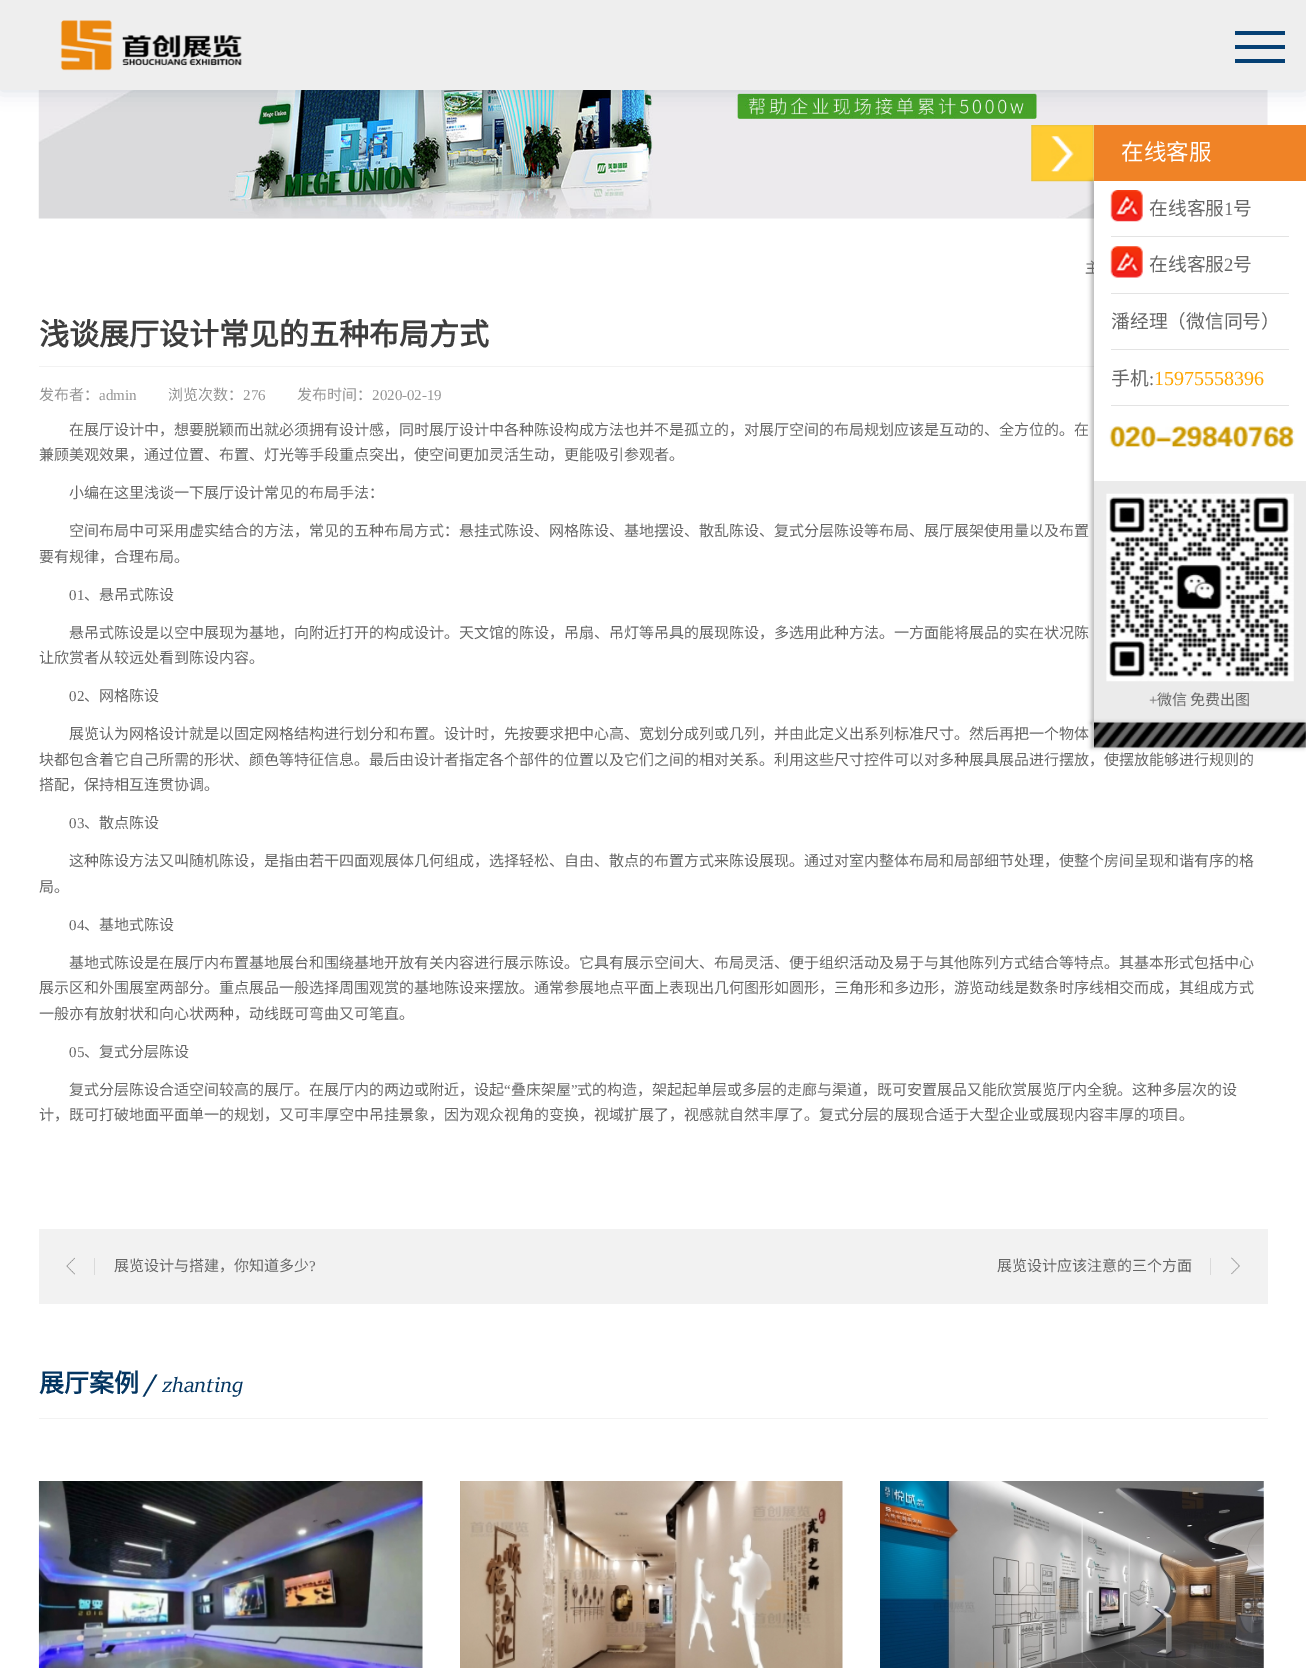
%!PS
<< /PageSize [1306 1668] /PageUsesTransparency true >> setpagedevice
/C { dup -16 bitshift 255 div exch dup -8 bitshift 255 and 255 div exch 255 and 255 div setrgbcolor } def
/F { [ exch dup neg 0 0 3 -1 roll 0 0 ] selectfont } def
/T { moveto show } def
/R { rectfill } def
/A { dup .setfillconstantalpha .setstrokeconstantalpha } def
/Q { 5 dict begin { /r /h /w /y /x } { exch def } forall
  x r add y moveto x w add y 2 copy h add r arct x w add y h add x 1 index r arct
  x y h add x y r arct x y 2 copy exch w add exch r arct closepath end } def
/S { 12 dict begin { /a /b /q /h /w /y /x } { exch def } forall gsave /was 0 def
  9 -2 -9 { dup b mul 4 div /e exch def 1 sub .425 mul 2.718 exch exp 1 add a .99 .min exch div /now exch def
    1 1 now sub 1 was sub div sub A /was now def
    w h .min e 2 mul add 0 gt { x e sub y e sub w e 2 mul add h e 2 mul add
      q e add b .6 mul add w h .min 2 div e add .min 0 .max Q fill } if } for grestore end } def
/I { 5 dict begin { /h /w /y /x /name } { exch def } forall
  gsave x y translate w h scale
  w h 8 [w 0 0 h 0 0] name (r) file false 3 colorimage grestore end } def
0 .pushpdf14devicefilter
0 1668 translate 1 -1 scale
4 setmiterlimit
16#FFFFFF C
0 0 1306 1668 R
(2.rgb) 38 90 1230 129 I
16#002648 C
0 0 1306 90 0 9.5 .15 S
16#EEEEEE C
0 0 1306 90 R
(1.rgb) 60 20 182 51 I
16#054074 C
1235 31 50 4 R
1235 45 50 4 R
1235 59 50 4 R
(3.rgb) 1031 125 63 57 I
16#F2F2F2 C
39 366 1055 1 R
16#000000 C
1091 181 213 542 0 2 .25 S
16#F08326 C
1094 125 212 56 R
/NotoSansCJKSC-Regular 22.5 F
16#FFFFFF C
(在线客服) 1121 160 T
/NotoSansCJKSC-Regular 15 F
16#666666 C
(主) 1085 273 T
16#FFFFFF C
1094 181 212 300 R
16#E3E3E3 C
1111 236 178 1 R
(4.rgb) 1110 190 33 32 I
/NotoSansCJKSC-Regular 18.75 F
16#666666 C
(在线客服) 1149 215 T
/LiberationSerif-Regular 18.75 F
(1) 1224 215 T
/NotoSansCJKSC-Regular 18.75 F
(号) 1233 215 T
16#E3E3E3 C
1111 293 178 1 R
(5.rgb) 1110 246 33 32 I
16#666666 C
(在线客服) 1149 271 T
/LiberationSerif-Regular 18.75 F
(2) 1224 271 T
/NotoSansCJKSC-Regular 18.75 F
(号) 1233 271 T
16#E3E3E3 C
1111 349 178 1 R
16#666666 C
(潘经理（微信同号）) 1111 328 T
16#E3E3E3 C
1111 405 178 1 R
16#666666 C
(手机) 1111 385 T
/LiberationSerif-Regular 18.75 F
(:) 1149 385 T
/LiberationSerif-Regular 20 F
16#FFA500 C
(15975558396) 1154 385 T
(6.rgb) 1109 426 186 24 I
16#EBEBEB C
1094 481 212 242 R
(7.rgb) 1106 493 188 189 I
/LiberationSerif-Regular 15 F
16#666666 C
(+) 1149 705 T
/NotoSansCJKSC-Regular 15 F
(微信 免费出图) 1157 705 T
16#000000 C
1091 723 213 25 0 2 .25 S
(8.rgb) 1094 722 212 26 I
/NotoSansCJKSC-Bold 30 F
16#3E3E3E C
(浅谈展厅设计常见的五种布局方式) 39 345 T
/NotoSansCJKSC-Regular 15 F
16#949494 C
(发布者：) 39 400 T
/LiberationSerif-Regular 15 F
(admin) 99 400 T
/NotoSansCJKSC-Regular 15 F
(浏览次数：) 168 400 T
/LiberationSerif-Regular 15 F
(276) 243 400 T
/NotoSansCJKSC-Regular 15 F
(发布时间：) 297 400 T
/LiberationSerif-Regular 15 F
(2020-02-19) 372 400 T
/NotoSansCJKSC-Regular 15 F
16#666666 C
(在展厅设计中，想要脱颖而出就必须拥有设计感，同时展厅设计中各种陈设构成方法也并不是孤立的，对展厅空间的布局规划应该是互动的、全方位的。在) 69 435 T
(兼顾美观效果，通过位置、布置、灯光等手段重点突出，使空间更加灵活生动，更能吸引参观者。) 39 460 T
(小编在这里浅谈一下展厅设计常见的布局手法：) 69 498 T
(空间布局中可采用虚实结合的方法，常见的五种布局方式：悬挂式陈设、网格陈设、基地摆设、散乱陈设、复式分层陈设等布局、展厅展架使用量以及布置) 69 536 T
(要有规律，合理布局。) 39 562 T
/LiberationSerif-Regular 15 F
(01) 69 600 T
/NotoSansCJKSC-Regular 15 F
(、悬吊式陈设) 84 600 T
(悬吊式陈设是以空中展现为基地，向附近打开的构成设计。天文馆的陈设，吊扇、吊灯等吊具的展现陈设，多选用此种方法。一方面能将展品的实在状况陈) 69 638 T
(让欣赏者从较远处看到陈设内容。) 39 663 T
/LiberationSerif-Regular 15 F
(02) 69 701 T
/NotoSansCJKSC-Regular 15 F
(、网格陈设) 84 701 T
(展览认为网格设计就是以固定网格结构进行划分和布置。设计时，先按要求把中心高、宽划分成列或几列，并由此定义出系列标准尺寸。然后再把一个物体) 69 739 T
(块都包含着它自己所需的形状、颜色等特征信息。最后由设计者指定各个部件的位置以及它们之间的相对关系。利用这些尺寸控件可以对多种展具展品进行摆放，使摆放能够进行规则的) 39 765 T
(搭配，保持相互连贯协调。) 39 790 T
/LiberationSerif-Regular 15 F
(03) 69 828 T
/NotoSansCJKSC-Regular 15 F
(、散点陈设) 84 828 T
(这种陈设方法又叫随机陈设，是指由若干四面观展体几何组成，选择轻松、自由、散点的布置方式来陈设展现。通过对室内整体布局和局部细节处理，使整个房间呈现和谐有序的格) 69 866 T
(局。) 39 892 T
/LiberationSerif-Regular 15 F
(04) 69 930 T
/NotoSansCJKSC-Regular 15 F
(、基地式陈设) 84 930 T
(基地式陈设是在展厅内布置基地展台和围绕基地开放有关内容进行展示陈设。它具有展示空间大、布局灵活、便于组织活动及易于与其他陈列方式结合等特点。其基本形式包括中心) 69 968 T
(展示区和外围展室两部分。重点展品一般选择周围观赏的基地陈设来摆放。通常参展地点平面上表现出几何图形如圆形，三角形和多边形，游览动线是数条时序线相交而成，其组成方式) 39 993 T
(一般亦有放射状和向心状两种，动线既可弯曲又可笔直。) 39 1019 T
/LiberationSerif-Regular 15 F
(05) 69 1057 T
/NotoSansCJKSC-Regular 15 F
(、复式分层陈设) 84 1057 T
(复式分层陈设合适空间较高的展厅。在展厅内的两边或附近，设起) 69 1095 T
/LiberationSerif-Regular 15 F
(“) 504 1095 T
/NotoSansCJKSC-Regular 15 F
(叠床架屋) 511 1095 T
/LiberationSerif-Regular 15 F
(”) 571 1095 T
/NotoSansCJKSC-Regular 15 F
(式的构造，架起起单层或多层的走廊与渠道，既可安置展品又能欣赏展览厅内全貌。这种多层次的设) 577 1095 T
(计，既可打破地面平面单一的规划，又可丰厚空中吊挂景象，因为观众视角的变换，视域扩展了，视感就自然丰厚了。复式分层的展现合适于大型企业或展现内容丰厚的项目。) 39 1120 T
16#F2F2F2 C
39 1229 1229 75 R
(9.rgb) 66 1257 9 18 I
16#DADADA C
94 1258 1 17 R
16#666666 C
(展览设计与搭建，你知道多少) 114 1271 T
/LiberationSerif-Regular 15 F
(?) 309 1271 T
/NotoSansCJKSC-Regular 15 F
(展览设计应该注意的三个方面) 997 1271 T
16#DADADA C
1210 1258 1 17 R
(10.rgb) 1231 1257 9 18 I
16#F2F2F2 C
39 1418 1229 1 R
/NotoSansCJKSC-Bold 25 F
16#033561 C
(展厅案例) 39 1392 T
/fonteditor-Bold 25 F
(/) 145 1392 T
/fonteditor-Regular 22.5 F
(zhanting) 162 1392 T
(11.rgb) 38 1481 385 187 I
(12.rgb) 460 1481 383 187 I
(13.rgb) 880 1481 384 187 I
.poppdf14devicefilter showpage
